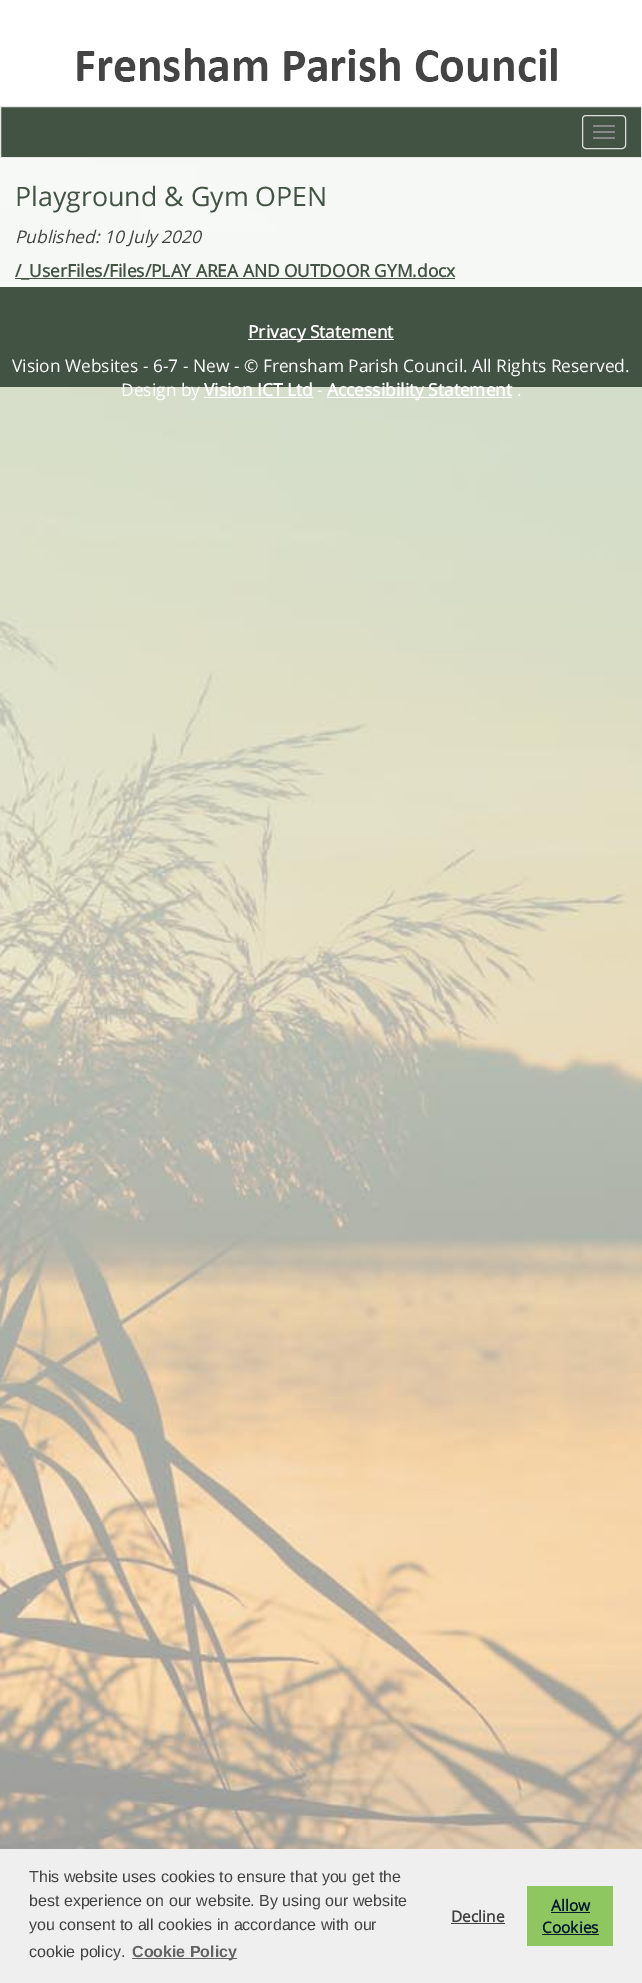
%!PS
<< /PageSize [642 1983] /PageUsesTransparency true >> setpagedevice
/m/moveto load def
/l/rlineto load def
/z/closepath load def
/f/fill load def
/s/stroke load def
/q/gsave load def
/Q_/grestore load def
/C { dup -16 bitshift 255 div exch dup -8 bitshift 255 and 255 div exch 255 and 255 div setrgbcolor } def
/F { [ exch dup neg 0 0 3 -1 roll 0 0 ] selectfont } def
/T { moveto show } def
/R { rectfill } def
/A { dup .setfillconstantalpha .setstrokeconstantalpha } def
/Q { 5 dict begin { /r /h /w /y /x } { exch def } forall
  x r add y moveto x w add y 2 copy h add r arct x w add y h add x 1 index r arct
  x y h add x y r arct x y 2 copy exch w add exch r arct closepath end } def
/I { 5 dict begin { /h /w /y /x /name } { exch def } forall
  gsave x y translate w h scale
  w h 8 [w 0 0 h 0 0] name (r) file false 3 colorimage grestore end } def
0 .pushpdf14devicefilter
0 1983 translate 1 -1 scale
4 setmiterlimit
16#FFFFFF C
0 0 642 1983 R
(1.rgb) 0 158 642 1691 I
(2.rgb) 77 48 480 34 I
16#425343 C
.5 106.5 m 641 0 l 0 51 l -641 0 l z q f Q_
16#E7E7E7 C
s
16#DDDDDD C
582.5 115.5 43 33 3.5 Q s
16#888888 C
593 125 22 2 1 Q f
593 131 22 2 1 Q f
593 137 22 2 1 Q f
0.8 A
16#FFFFFF C
0 158 642 129 R
/OpenSans-Regular 26.75 F
1 A
16#425343 C
(Playground & Gym OPEN) 15 206 T
/OpenSans-Italic 17.35 F
16#414141 C
(Published: 10 July 2020) 15 243 T
16#425343 C
15 278 440 1 R
/OpenSans-Bold 17.35 F
(/_UserFiles/Files/PLAY AREA AND OUTDOOR GYM.docx) 15 277 T
0 287 642 100 R
16#FFFFFF C
248 339 146 1 R
(Privacy Statement) 248 338 T
/OpenSans-Regular 17.35 F
(Vision Websites - 6-7 - New - © Frensham Parish Council. All Rights Reserved.) 12 372 T
(Design by) 121 396 T
/OpenSans-Bold 17.35 F
(Vision ICT Ltd) 204 396 T
204 397 109 1 R
/OpenSans-Regular 17.35 F
(-) 317 396 T
327 397 185 1 R
/OpenSans-Bold 17.35 F
(Accessibility Statement) 327 396 T
/OpenSans-Regular 17.35 F
(.) 517 396 T
16#EFEFEF C
0 1849 642 134 R
/LiberationSans-Regular 16 F
16#414141 C
(This website uses cookies to ensure that you get the) 29 1882 T
(best experience on our website. By using our website) 29 1906 T
(you consent to all cookies in accordance with our) 29 1930 T
(cookie policy.) 29 1957 T
16#636363 C
132 1958 105 1 R
/LiberationSans-Bold 16 F
(Cookie Policy) 132 1957 T
/OpenSans-Bold 15.5 F
16#414141 C
(Decline) 451 1922 T
16#404040 C
451 1923 54 1 R
16#8EC760 C
527 1886 86 60 R
16#00182E C
(Allow) 551 1911 T
551 1912 39 1 R
(Cookies) 542 1933 T
542 1934 57 1 R
.poppdf14devicefilter showpage
